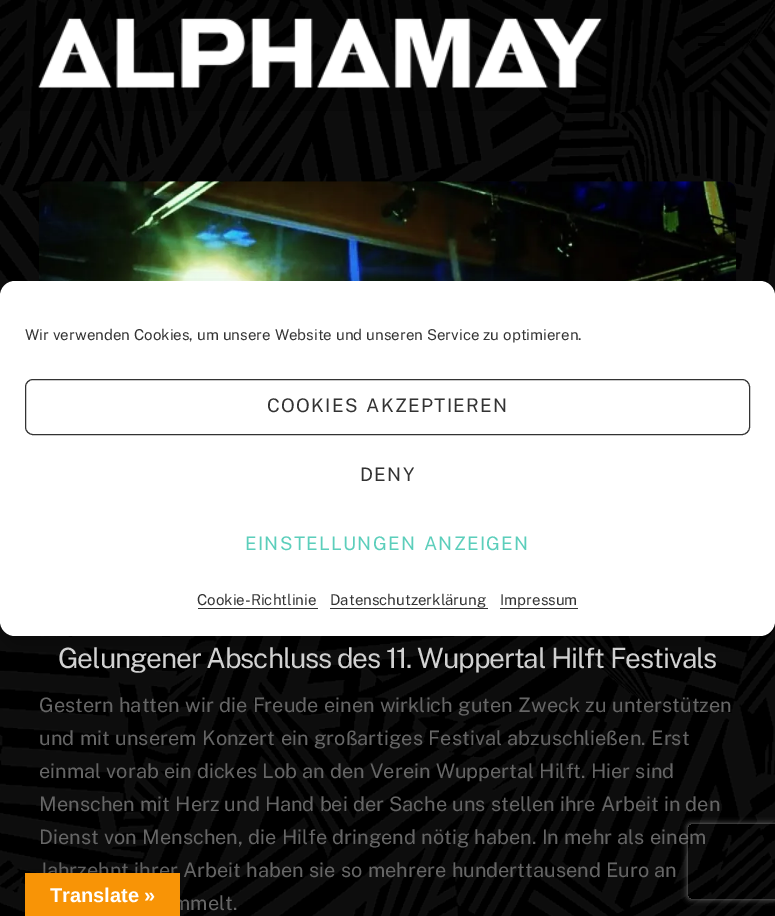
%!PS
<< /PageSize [775 916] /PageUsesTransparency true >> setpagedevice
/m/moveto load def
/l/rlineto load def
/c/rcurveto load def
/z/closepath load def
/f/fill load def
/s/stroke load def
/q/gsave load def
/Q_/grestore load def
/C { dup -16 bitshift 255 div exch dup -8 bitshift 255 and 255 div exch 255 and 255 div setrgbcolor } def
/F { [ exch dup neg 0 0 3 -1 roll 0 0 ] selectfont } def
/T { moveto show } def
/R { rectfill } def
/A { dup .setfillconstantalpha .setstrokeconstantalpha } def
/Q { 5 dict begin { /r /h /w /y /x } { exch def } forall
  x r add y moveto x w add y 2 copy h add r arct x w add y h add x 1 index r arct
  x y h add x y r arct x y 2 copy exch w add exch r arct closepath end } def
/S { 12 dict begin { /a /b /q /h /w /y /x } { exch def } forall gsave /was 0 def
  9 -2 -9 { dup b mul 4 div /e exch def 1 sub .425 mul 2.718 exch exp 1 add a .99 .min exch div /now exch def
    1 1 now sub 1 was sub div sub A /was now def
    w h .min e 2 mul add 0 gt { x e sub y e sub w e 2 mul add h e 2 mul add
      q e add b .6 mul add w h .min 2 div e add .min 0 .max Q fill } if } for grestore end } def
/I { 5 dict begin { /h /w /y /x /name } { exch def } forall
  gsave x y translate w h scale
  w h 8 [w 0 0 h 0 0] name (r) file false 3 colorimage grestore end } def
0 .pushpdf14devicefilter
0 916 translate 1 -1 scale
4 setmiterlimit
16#FFFFFF C
0 0 775 916 R
(1.rgb) 0 0 775 916 I
(3.rgb) 38 181 699 100 I
16#000000 C
0 294 775 355 15 12.5 .19 S
16#FFFFFF C
0 281 775 355 15 Q f
/PublicSans-Regular 15 F
16#333333 C
25 340 m .4 0 32 (Wir verwenden Cookies, um unsere Website und unseren Service zu optimieren.) widthshow
25.5 379.5 724 55 7.5 Q s
/PublicSans-Regular 18.75 F
267 412 m 2 0 32 1.25 0 (COOKIES AKZEPTIEREN) awidthshow
360 481 m 1.25 0 (DENY) ashow
16#5CCEBB C
245 550 m 2 0 32 1.25 0 (EINSTELLUNGEN ANZEIGEN) awidthshow
/PublicSans-Regular 15 F
16#333333 C
(Cookie-Richtlinie) 197 605 T
198 608 120 1 R
(Datenschutzerklärung) 330 605 T
330 608 158 1 R
(Impressum) 500 605 T
500 608 78 1 R
0.23 A
16#000000 C
0 0 775 111 R
1 A
(2.rgb) 38 18 564 70 I
698 43 27 3 R
714 23 11 3 R
698 33 27 3 R
/PublicSans-Regular 28 F
16#D1D1D1 C
58 668 m -1.12 0 (Gelungener Abschluss des 11. Wuppertal Hilft Festivals) ashow
/PublicSans-Regular 20 F
16#666666 C
39 712 m .5 0 32 (Gestern hatten wir die Freude einen wirklich guten Zweck zu unterstützen) widthshow
39 745 m .75 0 32 (und mit unserem Konzert ein großartiges Festival abzuschließen. Erst) widthshow
39 778 m .3 0 32 (einmal vorab ein dickes Lob an den Verein Wuppertal Hilft. Hier sind) widthshow
39 811 m .25 0 32 (Menschen mit Herz und Hand bei der Sache uns stellen ihre Arbeit in den) widthshow
39 844 m .4 0 32 (Dienst von Menschen, die Hilfe dringend nötig haben. In mehr als einem) widthshow
39 877 m .5 0 32 (Jahrzehnt ihrer Arbeit haben sie so mehrere hunderttausend Euro an) widthshow
173 910 m 2 0 32 (mmelt.) widthshow
16#000000 C
25 873 155 43 0 5.5 .3 S
16#F89406 C
25 873 155 43 R
/LiberationSans-Bold 20 F
16#FFFFFF C
(Translate ») 50 902 T
q
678 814 m 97 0 l 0 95 l -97 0 l z 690.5 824 m 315 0 l 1.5 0 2.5 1 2.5 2.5 c 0 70 l 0 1.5 -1 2.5 -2.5 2.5 c -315 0 l -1.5 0 -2.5 -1 -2.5 -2.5 c 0 -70 l 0 -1.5 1 -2.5 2.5 -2.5 c z eoclip newpath
16#808080 C
688 824 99 75 2.5 3 1 S
Q_
.poppdf14devicefilter showpage
